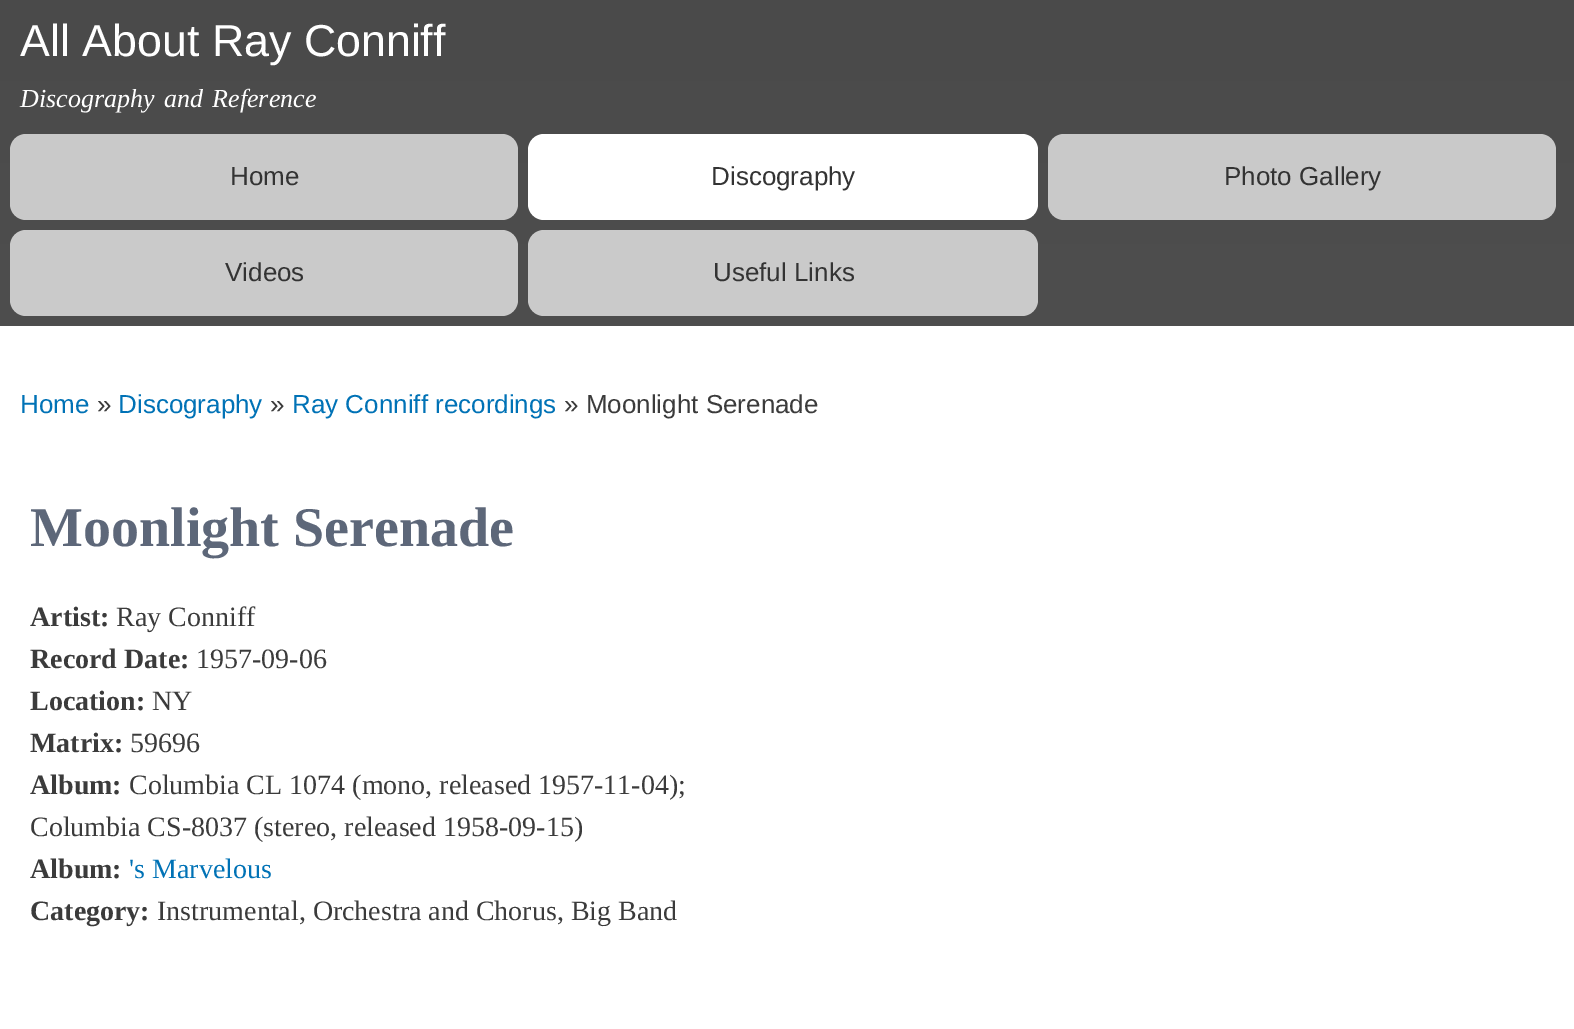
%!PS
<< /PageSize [1574 1029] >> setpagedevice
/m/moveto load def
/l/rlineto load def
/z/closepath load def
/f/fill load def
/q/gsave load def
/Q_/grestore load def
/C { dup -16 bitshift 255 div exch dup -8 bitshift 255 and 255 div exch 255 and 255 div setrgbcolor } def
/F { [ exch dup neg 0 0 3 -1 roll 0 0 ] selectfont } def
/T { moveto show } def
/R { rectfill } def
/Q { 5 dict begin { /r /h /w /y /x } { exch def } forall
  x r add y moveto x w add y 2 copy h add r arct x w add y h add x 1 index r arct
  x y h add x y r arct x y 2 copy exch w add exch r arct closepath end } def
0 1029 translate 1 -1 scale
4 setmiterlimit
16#FFFFFF C
0 0 1574 1029 R
q 0 0 m 1574 0 l 0 326 l -1574 0 l z clip newpath
<< /ShadingType 2 /ColorSpace /DeviceRGB /Coords [787 0 787 326] /Extend [true true] /Function << /FunctionType 2 /Domain [0 1] /C0 [.29 .29 .29] /C1 [.306 .306 .306] /N 1 >> >> shfill Q_
/LiberationSans-Regular 44.75 F
(All About Ray Conniff) 20 56 T
/LiberationSerif-Italic 26 F
20 107 m 3 0 32 (Discography and Reference) widthshow
16#C9C9C9 C
10 134 508 86 16 Q f
/LiberationSans-Regular 26 F
16#333333 C
(Home) 230 185 T
16#FFFFFF C
528 134 510 86 16 Q f
16#333333 C
(Discography) 711 185 T
16#C9C9C9 C
1048 134 508 86 16 Q f
16#333333 C
(Photo Gallery) 1224 185 T
16#CACACA C
10 230 508 86 16 Q f
16#333333 C
(Videos) 225 281 T
16#CACACA C
528 230 510 86 16 Q f
16#333333 C
(Useful Links) 713 281 T
16#0072B6 C
(Home) 20 413 T
16#3B3B3B C
(») 97 413 T
16#0072B6 C
(Discography) 118 413 T
16#3B3B3B C
(») 270 413 T
16#0072B6 C
(Ray Conniff recordings) 292 413 T
16#3B3B3B C
(» Moonlight Serenade) 564 413 T
/LiberationSerif-Bold 56 F
16#5D6779 C
(Moonlight Serenade) 30 546 T
/LiberationSerif-Bold 28 F
16#3B3B3B C
(Artist:) 30 626 T
/LiberationSerif-Regular 28 F
(Ray Conniff) 116 626 T
/LiberationSerif-Bold 28 F
(Record Date:) 30 668 T
/LiberationSerif-Regular 28 F
(1957-09-06) 196 668 T
/LiberationSerif-Bold 28 F
(Location:) 30 710 T
/LiberationSerif-Regular 28 F
(NY) 152 710 T
/LiberationSerif-Bold 28 F
(Matrix:) 30 752 T
/LiberationSerif-Regular 28 F
(59696) 130 752 T
/LiberationSerif-Bold 28 F
(Album:) 30 794 T
/LiberationSerif-Regular 28 F
(Columbia CL 1074 \(mono, released 1957-11-04\);) 129 794 T
(Columbia CS-8037 \(stereo, released 1958-09-15\)) 30 836 T
/LiberationSerif-Bold 28 F
(Album:) 30 878 T
/LiberationSerif-Regular 28 F
16#0072B6 C
('s Marvelous) 129 878 T
/LiberationSerif-Bold 28 F
16#3B3B3B C
(Category:) 30 920 T
/LiberationSerif-Regular 28 F
(Instrumental, Orchestra and Chorus, Big Band) 157 920 T
showpage
